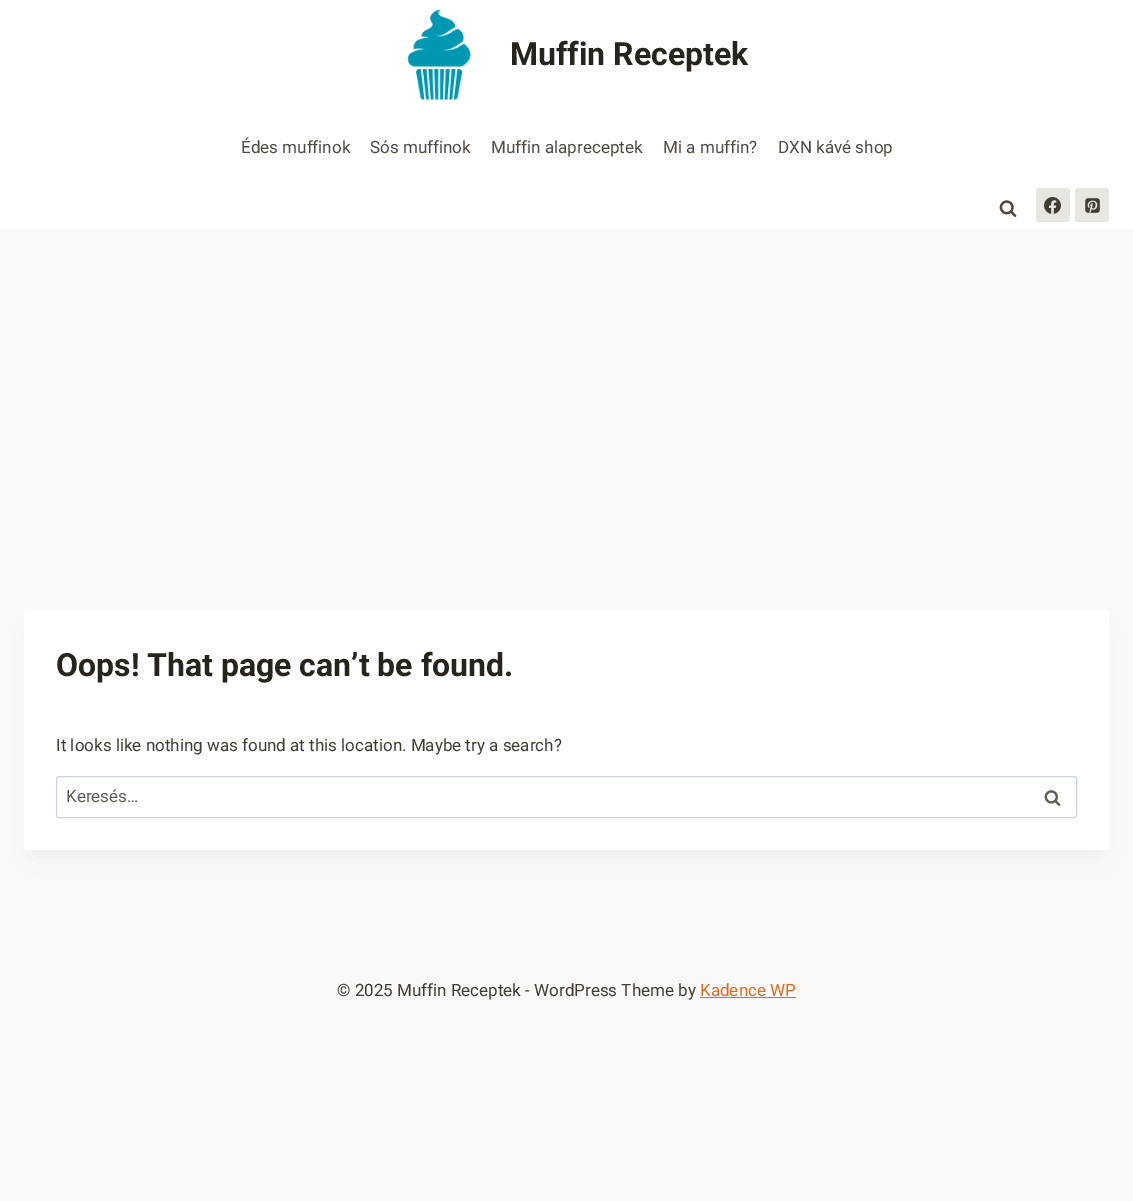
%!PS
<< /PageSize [1133 1201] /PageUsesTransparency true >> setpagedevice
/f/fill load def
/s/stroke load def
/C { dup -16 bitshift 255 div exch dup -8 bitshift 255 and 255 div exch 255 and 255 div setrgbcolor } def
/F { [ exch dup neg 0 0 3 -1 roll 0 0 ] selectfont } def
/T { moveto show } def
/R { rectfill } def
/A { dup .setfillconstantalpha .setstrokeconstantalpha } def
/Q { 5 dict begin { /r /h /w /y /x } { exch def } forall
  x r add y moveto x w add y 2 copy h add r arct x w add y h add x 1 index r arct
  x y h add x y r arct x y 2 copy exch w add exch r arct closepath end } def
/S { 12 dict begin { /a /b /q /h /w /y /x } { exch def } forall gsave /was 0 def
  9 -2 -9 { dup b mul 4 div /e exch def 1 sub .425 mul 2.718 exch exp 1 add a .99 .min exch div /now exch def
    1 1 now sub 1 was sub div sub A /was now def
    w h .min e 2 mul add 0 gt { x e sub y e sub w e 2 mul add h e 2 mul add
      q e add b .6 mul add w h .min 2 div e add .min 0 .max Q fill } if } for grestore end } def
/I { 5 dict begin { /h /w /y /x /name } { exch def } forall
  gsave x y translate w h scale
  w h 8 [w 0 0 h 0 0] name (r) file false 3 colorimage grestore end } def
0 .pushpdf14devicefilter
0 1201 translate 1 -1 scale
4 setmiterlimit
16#FAF9F7 C
0 0 1133 1201 R
16#FFFFFF C
0 0 1133 229 R
(1.rgb) 407 9 64 92 I
/Roboto-Bold 32 F
16#27241D C
(Muffin Receptek) 510 65 T
/Roboto-Regular 17 F
16#504A40 C
(Édes muffinok) 241 153 T
(Sós muffinok) 370 153 T
(Muffin alapreceptek) 491 153 T
(Mi a muffin?) 663 153 T
(DXN kávé shop) 778 153 T
(2.rgb) 999 200 18 17 I
16#E8E6E1 C
1036 188 34 34 3 Q f
(3.rgb) 1044 197 17 17 I
1075 188 34 34 3 Q f
(4.rgb) 1085 198 15 15 I
16#000000 C
34 634 1065 221 0 12.5 .05 S
16#FFFFFF C
24 609 1085 241 4 Q f
/Roboto-Bold 32 F
16#27241D C
(Oops! That page can’t be found.) 56 676 T
/Roboto-Regular 17 F
16#423D33 C
(It looks like nothing was found at this location. Maybe try a search?) 56 751 T
16#CBD5E0 C
56.5 776.5 1020 41 2.5 Q s
16#625D52 C
(Keresés…) 66 802 T
(5.rgb) 1044 790 17 16 I
16#423D33 C
(© 2025 Muffin Receptek - WordPress Theme by) 337 996 T
16#DD6B20 C
(Kadence WP) 700 996 T
700 997 96 1 R
.poppdf14devicefilter showpage
